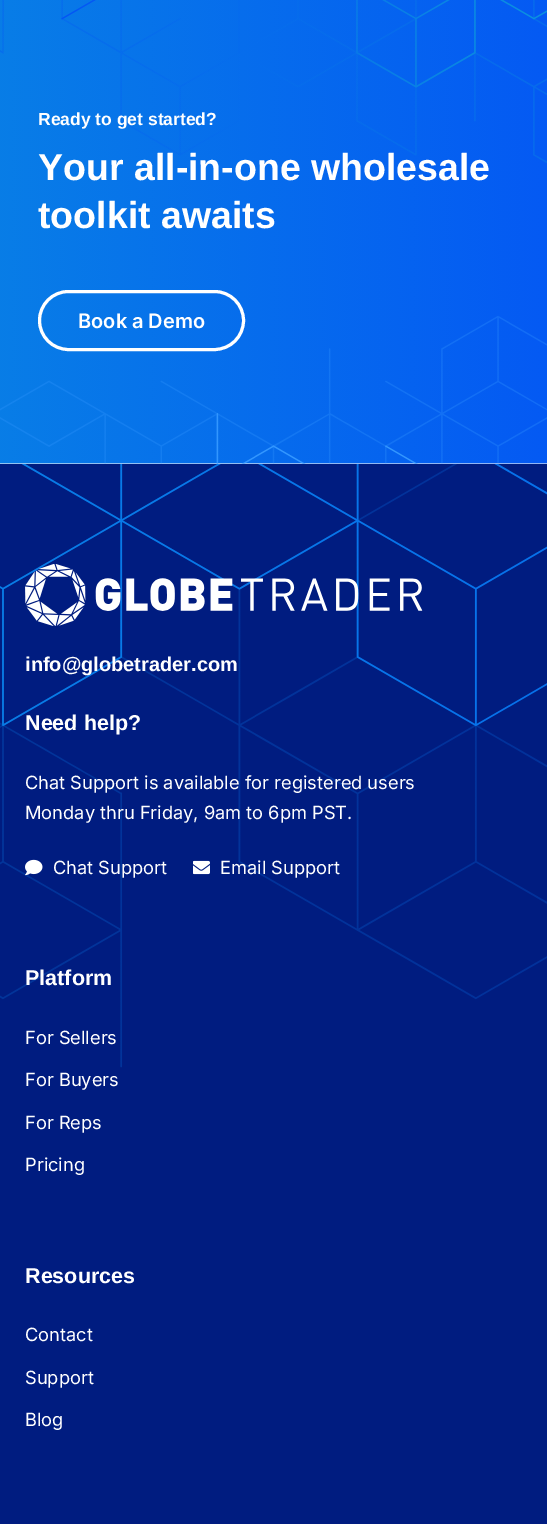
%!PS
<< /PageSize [547 1524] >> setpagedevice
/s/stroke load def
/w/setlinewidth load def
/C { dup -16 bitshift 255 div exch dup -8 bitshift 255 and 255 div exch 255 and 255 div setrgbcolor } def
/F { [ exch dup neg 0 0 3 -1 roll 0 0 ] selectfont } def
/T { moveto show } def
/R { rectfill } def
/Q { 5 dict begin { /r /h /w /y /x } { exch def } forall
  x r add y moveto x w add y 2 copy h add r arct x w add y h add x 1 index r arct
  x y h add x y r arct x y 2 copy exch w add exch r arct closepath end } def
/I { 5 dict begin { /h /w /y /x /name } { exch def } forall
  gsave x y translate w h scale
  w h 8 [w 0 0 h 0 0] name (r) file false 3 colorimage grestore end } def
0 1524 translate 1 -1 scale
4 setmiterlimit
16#F7F7F7 C
0 0 547 1524 R
(1.rgb) 0 0 547 464 I
/LiberationSans-Bold 17.5 F
16#FFFFFF C
(Ready to get started?) 38 125 T
/LiberationSans-Bold 37.5 F
(Your all-in-one wholesale) 38 180 T
(toolkit awaits) 38 228 T
3 w
39.5 291.5 204 58 29 Q s
/Inter-SemiBold 20 F
(Book a Demo) 78 328 T
16#001C80 C
0 1068 547 456 R
(2.rgb) 0 464 547 604 I
(3.rgb) 25 564 398 62 I
/LiberationSans-Bold 20 F
16#FFFFFF C
(info@globetrader.com) 25 671 T
/LiberationSans-Bold 21.5 F
(Need help?) 25 730 T
/Inter-Regular 18.25 F
(Chat Support is available for registered users) 25 789 T
(Monday thru Friday, 9am to 6pm PST.) 25 819 T
(4.rgb) 25 859 18 17 I
(Chat Support) 53 874 T
(5.rgb) 193 860 17 15 I
(Email Support) 220 874 T
/LiberationSans-Bold 21.5 F
(Platform) 25 985 T
/Inter-Regular 18.25 F
(For Sellers) 25 1044 T
(For Buyers) 25 1086 T
(For Reps) 25 1129 T
(Pricing) 25 1171 T
/LiberationSans-Bold 21.5 F
(Resources) 25 1283 T
/Inter-Regular 18.25 F
(Contact) 25 1341 T
(Support) 25 1384 T
(Blog) 25 1426 T
showpage
